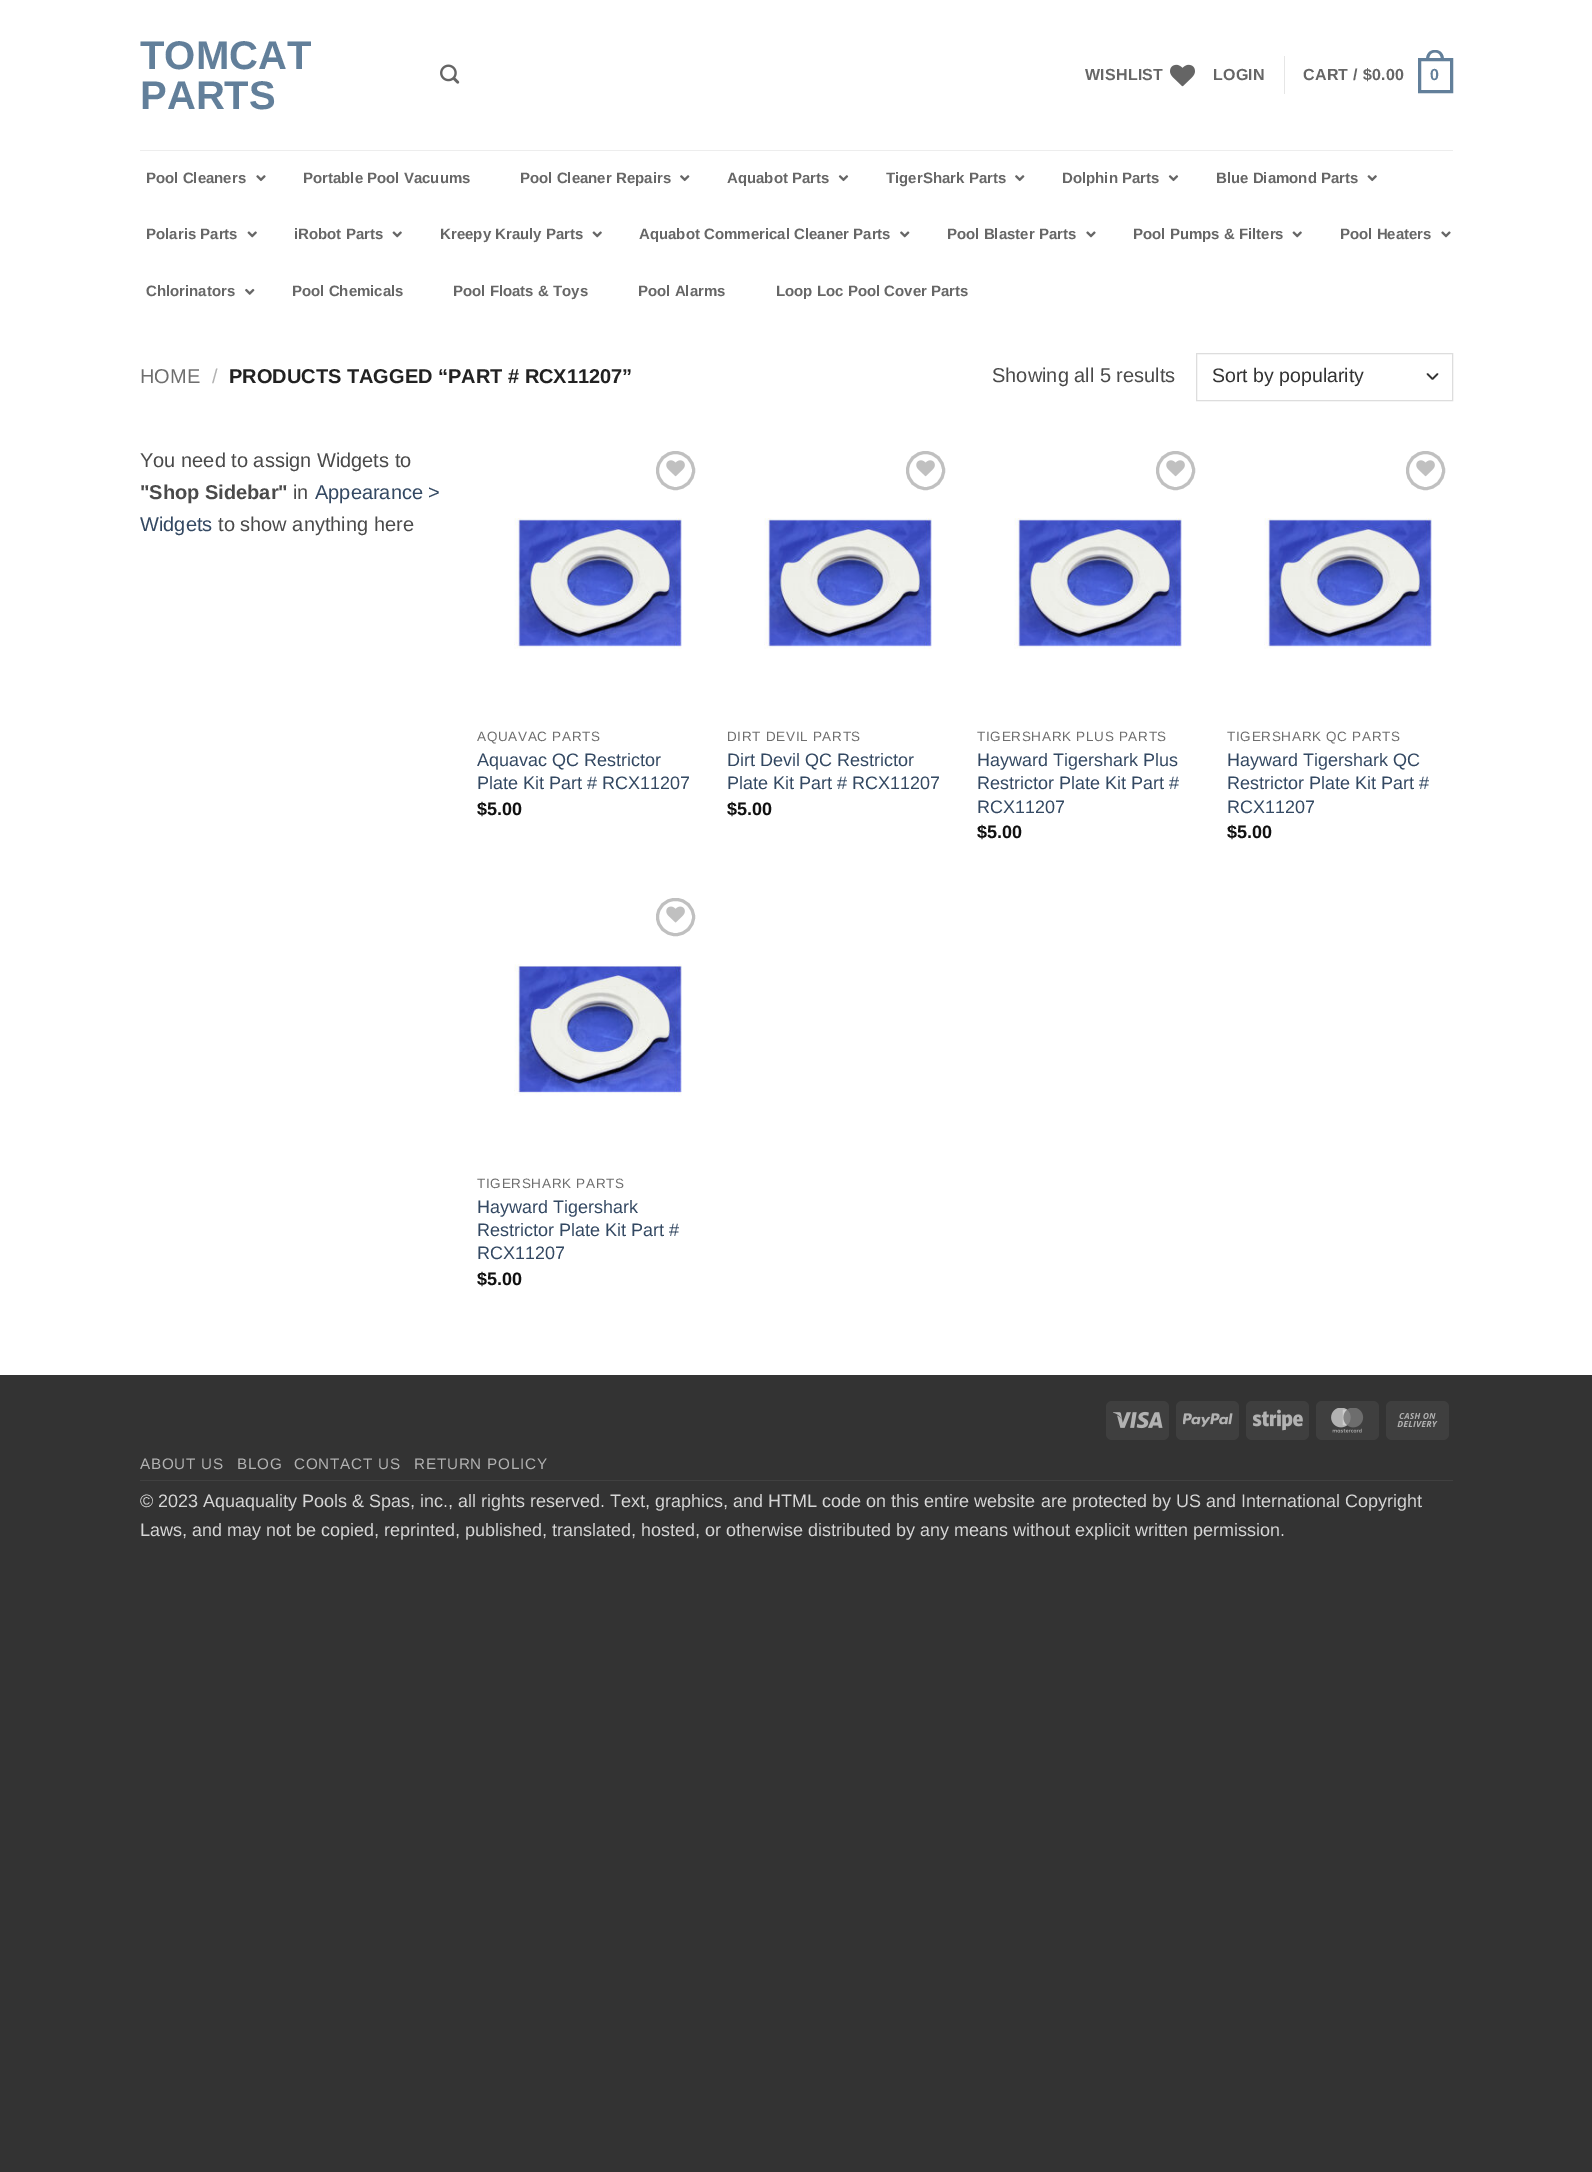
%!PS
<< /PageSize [1592 2172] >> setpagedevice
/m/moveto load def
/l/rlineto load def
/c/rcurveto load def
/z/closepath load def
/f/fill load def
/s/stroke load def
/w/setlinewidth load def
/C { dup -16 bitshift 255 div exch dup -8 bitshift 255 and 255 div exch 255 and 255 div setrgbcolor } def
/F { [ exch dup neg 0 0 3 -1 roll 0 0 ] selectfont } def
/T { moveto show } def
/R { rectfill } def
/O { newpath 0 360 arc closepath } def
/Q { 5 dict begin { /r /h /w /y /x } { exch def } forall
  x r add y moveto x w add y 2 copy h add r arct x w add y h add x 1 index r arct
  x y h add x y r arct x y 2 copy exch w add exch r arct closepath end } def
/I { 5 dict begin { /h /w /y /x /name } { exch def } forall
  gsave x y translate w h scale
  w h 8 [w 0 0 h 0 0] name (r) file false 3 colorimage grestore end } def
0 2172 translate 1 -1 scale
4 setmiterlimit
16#333333 C
0 0 1592 2172 R
16#FFFFFF C
0 0 1592 1375 R
/LiberationSans-Bold 40 F
16#627F9A C
(TOMCAT) 140 69 T
(PARTS) 140 109 T
(1.rgb) 440 64 20 20 I
/LiberationSans-Bold 16 F
16#666666 C
1085 80 m .25 0 (WISHLIST) ashow
(2.rgb) 1170 64 25 23 I
1213 80 m .25 0 (LOGIN) ashow
16#E6E6E6 C
1284 56 1 38 R
16#666666 C
1303 80 m .25 0 (CART / $0.00) ashow
16#627F9A C
3 w
1419.5 59.5 32 32 rectstroke
1435 50 m 6 0 9 4.5 9 10 c -18 0 l 0 -5.5 3 -10 9 -10 c z 1435 52.5 m 4.5 0 6 3.5 6 7.5 c -12 0 l 0 -4 1.5 -7.5 6 -7.5 c z eofill
1430 80 m .25 0 (0) ashow
16#EDEDED C
140 150 1313 1 R
/LiberationSans-Bold 15 F
16#666666 C
(Pool Cleaners) 146 183 T
(3.rgb) 256 175 10 7 I
(Portable Pool Vacuums) 303 183 T
(Pool Cleaner Repairs) 520 183 T
(4.rgb) 680 175 10 7 I
(Aquabot Parts) 727 183 T
(5.rgb) 838 175 11 7 I
(TigerShark Parts) 886 183 T
(4.rgb) 1015 175 10 7 I
(Dolphin Parts) 1062 183 T
(5.rgb) 1168 175 11 7 I
(Blue Diamond Parts) 1216 183 T
(6.rgb) 1367 175 10 7 I
(Polaris Parts) 146 239 T
(7.rgb) 247 231 10 7 I
(iRobot Parts) 294 239 T
(7.rgb) 392 231 10 7 I
(Kreepy Krauly Parts) 440 239 T
(7.rgb) 592 231 10 7 I
(Aquabot Commerical Cleaner Parts) 639 239 T
(8.rgb) 900 231 10 7 I
(Pool Blaster Parts) 947 239 T
(9.rgb) 1086 231 10 7 I
(Pool Pumps & Filters) 1133 239 T
(7.rgb) 1292 231 10 7 I
(Pool Heaters) 1340 239 T
(9.rgb) 1441 231 10 7 I
(Chlorinators) 146 296 T
(10.rgb) 245 288 10 7 I
(Pool Chemicals) 292 296 T
(Pool Floats & Toys) 453 296 T
(Pool Alarms) 638 296 T
(Loop Loc Pool Cover Parts) 776 296 T
/LiberationSans-Regular 20 F
16#6E6E6E C
(HOME) 140 383 T
16#B2B2B2 C
(/) 212 383 T
/LiberationSans-Bold 20 F
16#222222 C
(PRODUCTS TAGGED “PART # RCX11207”) 229 383 T
/LiberationSans-Regular 20 F
16#4A4A4A C
(Showing all 5 results) 992 382 T
16#333333 C
1.7 w
1 setlinecap
1 setlinejoin
1427.5 374 m 5 5 l 5 -5 l s
16#DDDDDD C
1 w
0 setlinecap
0 setlinejoin
1196.5 353.5 256 47 rectstroke
/LiberationSans-Regular 19.5 F
16#333333 C
(Sort by popularity) 1212 382 T
/LiberationSans-Regular 20 F
16#4A4A4A C
(You need to assign Widgets to) 140 467 T
/LiberationSans-Bold 20 F
("Shop Sidebar") 140 499 T
/LiberationSans-Regular 20 F
(in) 293 499 T
16#334862 C
(Appearance >) 315 499 T
(Widgets) 140 531 T
16#4A4A4A C
(to show anything here) 218 531 T
16#C0C0C0 C
3 w
675.5 470.5 18 O s
(11.rgb) 666 460 19 17 I
(12.rgb) 514 518 168 131 I
/LiberationSans-Regular 13.5 F
16#6E6E6E C
477 741 m .7 0 (AQUAVAC PARTS) ashow
/LiberationSans-Regular 18 F
16#334862 C
(Aquavac QC Restrictor) 477 766 T
(Plate Kit Part # RCX11207) 477 789 T
/LiberationSans-Bold 18 F
16#111111 C
($5.00) 477 815 T
16#C0C0C0 C
925.5 470.5 18 O s
(11.rgb) 916 460 19 17 I
(12.rgb) 764 518 168 131 I
/LiberationSans-Regular 13.5 F
16#6E6E6E C
727 741 m .7 0 (DIRT DEVIL PARTS) ashow
/LiberationSans-Regular 18 F
16#334862 C
(Dirt Devil QC Restrictor) 727 766 T
(Plate Kit Part # RCX11207) 727 789 T
/LiberationSans-Bold 18 F
16#111111 C
($5.00) 727 815 T
16#C0C0C0 C
1175.5 470.5 18 O s
(11.rgb) 1166 460 19 17 I
(12.rgb) 1014 518 168 131 I
/LiberationSans-Regular 13.5 F
16#6E6E6E C
977 741 m .7 0 (TIGERSHARK PLUS PARTS) ashow
/LiberationSans-Regular 18 F
16#334862 C
(Hayward Tigershark Plus) 977 766 T
(Restrictor Plate Kit Part #) 977 789 T
(RCX11207) 977 813 T
/LiberationSans-Bold 18 F
16#111111 C
($5.00) 977 838 T
16#C0C0C0 C
1425.5 470.5 18 O s
(11.rgb) 1416 460 19 17 I
(12.rgb) 1264 518 168 131 I
/LiberationSans-Regular 13.5 F
16#6E6E6E C
1227 741 m .7 0 (TIGERSHARK QC PARTS) ashow
/LiberationSans-Regular 18 F
16#334862 C
(Hayward Tigershark QC) 1227 766 T
(Restrictor Plate Kit Part #) 1227 789 T
(RCX11207) 1227 813 T
/LiberationSans-Bold 18 F
16#111111 C
($5.00) 1227 838 T
16#C0C0C0 C
657.5 899.5 36 35 17.5 Q s
(13.rgb) 666 906 19 17 I
(14.rgb) 514 964 168 132 I
/LiberationSans-Regular 13.5 F
16#6E6E6E C
477 1188 m .7 0 (TIGERSHARK PARTS) ashow
/LiberationSans-Regular 18 F
16#334862 C
(Hayward Tigershark) 477 1213 T
(Restrictor Plate Kit Part #) 477 1236 T
(RCX11207) 477 1259 T
/LiberationSans-Bold 18 F
16#111111 C
($5.00) 477 1285 T
16#3F3F3F C
1106 1401 63 39 6 Q f
(15.rgb) 1113 1411 50 18 I
1176 1401 63 39 6 Q f
(16.rgb) 1183 1413 50 14 I
1246 1401 63 39 6 Q f
(17.rgb) 1253 1409 50 22 I
1316 1401 63 39 6 Q f
(18.rgb) 1331 1408 33 25 I
1386 1401 63 39 6 Q f
(19.rgb) 1397 1413 41 14 I
16#404040 C
140 1480 1313 1 R
/LiberationSans-Regular 15.25 F
16#B2B2B2 C
140 1469 m .75 0 (ABOUT US) ashow
237 1469 m .75 0 (BLOG) ashow
294 1469 m .75 0 (CONTACT US) ashow
414 1469 m .75 0 (RETURN POLICY) ashow
/LiberationSans-Regular 18 F
16#D6D6D6 C
(© 2023 Aquaquality Pools & Spas, inc., all rights reserved. Text, graphics, and HTML code on this entire website are protected by US and International Copyright) 140 1507 T
(Laws, and may not be copied, reprinted, published, translated, hosted, or otherwise distributed by any means without explicit written permission.) 140 1536 T
showpage
